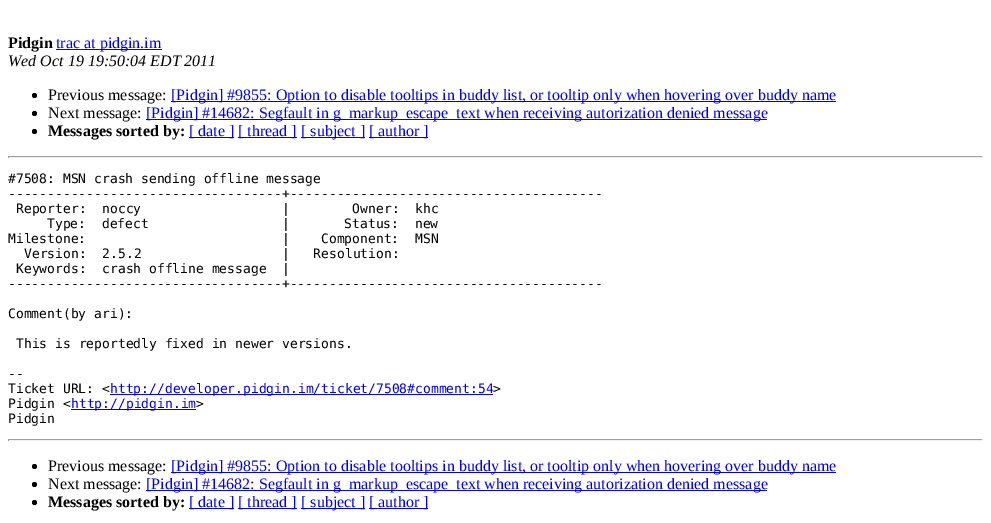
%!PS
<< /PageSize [991 523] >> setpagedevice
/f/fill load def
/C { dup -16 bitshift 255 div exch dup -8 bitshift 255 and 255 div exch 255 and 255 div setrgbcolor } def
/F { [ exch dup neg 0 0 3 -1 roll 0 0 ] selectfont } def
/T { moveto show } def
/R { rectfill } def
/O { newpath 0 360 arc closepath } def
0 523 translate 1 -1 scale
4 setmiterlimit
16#FFFFFF C
0 0 991 523 R
/LiberationSerif-Bold 16 F
16#000000 C
(Pidgin) 8 48 T
16#0000EE C
56 49 106 1 R
/LiberationSerif-Regular 16 F
(trac at pidgin.im) 56 48 T
/LiberationSerif-Italic 16 F
16#000000 C
(Wed Oct 19 19:50:04 EDT 2011) 8 66 T
34.5 95.5 2.5 O f
/LiberationSerif-Regular 16 F
(Previous message:) 48 100 T
16#0000EE C
171 101 665 1 R
([Pidgin] #9855: Option to disable tooltips in buddy list, or tooltip only when hovering over buddy name) 171 100 T
16#000000 C
34.5 113.5 2.5 O f
(Next message:) 48 118 T
16#0000EE C
146 119 621 1 R
([Pidgin] #14682: Segfault in g_markup_escape_text when receiving autorization denied message) 146 118 T
16#000000 C
34.5 131.5 2.5 O f
/LiberationSerif-Bold 16 F
(Messages sorted by:) 48 136 T
16#0000EE C
189 137 45 1 R
/LiberationSerif-Regular 16 F
([ date ]) 189 136 T
238 137 59 1 R
([ thread ]) 238 136 T
301 137 64 1 R
([ subject ]) 301 136 T
369 137 59 1 R
([ author ]) 369 136 T
16#9F9F9F C
8 156 975 1 R
16#EEEEEE C
982 156 1 2 R
8 157 975 1 R
16#9F9F9F C
8 156 1 2 R
/DejaVuSansMono-Regular 13 F
16#000000 C
(#7508: MSN crash sending offline message) 8 183 T
(-----------------------------------+----------------------------------------) 8 198 T
(Reporter:  noccy                  |        Owner:  khc) 16 213 T
(Type:  defect                 |       Status:  new) 47 228 T
(Milestone:                         |    Component:  MSN) 8 243 T
(Version:  2.5.2                  |   Resolution:) 24 258 T
(Keywords:  crash offline message  |) 16 273 T
(-----------------------------------+----------------------------------------) 8 288 T
(Comment\(by ari\):) 8 318 T
(This is reportedly fixed in newer versions.) 16 348 T
(--) 8 378 T
(Ticket URL: <) 8 393 T
16#0000EE C
110 394 383 1 R
(http://developer.pidgin.im/ticket/7508#comment:54) 110 393 T
16#000000 C
(>) 493 393 T
(Pidgin <) 8 408 T
16#0000EE C
71 409 125 1 R
(http://pidgin.im) 71 408 T
16#000000 C
(>) 196 408 T
(Pidgin) 8 423 T
16#9F9F9F C
8 439 975 1 R
16#EEEEEE C
982 439 1 2 R
8 440 975 1 R
16#9F9F9F C
8 439 1 2 R
16#000000 C
34.5 466.5 2.5 O f
/LiberationSerif-Regular 16 F
(Previous message:) 48 471 T
16#0000EE C
171 472 665 1 R
([Pidgin] #9855: Option to disable tooltips in buddy list, or tooltip only when hovering over buddy name) 171 471 T
16#000000 C
34.5 484.5 2.5 O f
(Next message:) 48 489 T
16#0000EE C
146 490 621 1 R
([Pidgin] #14682: Segfault in g_markup_escape_text when receiving autorization denied message) 146 489 T
16#000000 C
34.5 502.5 2.5 O f
/LiberationSerif-Bold 16 F
(Messages sorted by:) 48 507 T
16#0000EE C
189 508 45 1 R
/LiberationSerif-Regular 16 F
([ date ]) 189 507 T
238 508 59 1 R
([ thread ]) 238 507 T
301 508 64 1 R
([ subject ]) 301 507 T
369 508 59 1 R
([ author ]) 369 507 T
showpage
